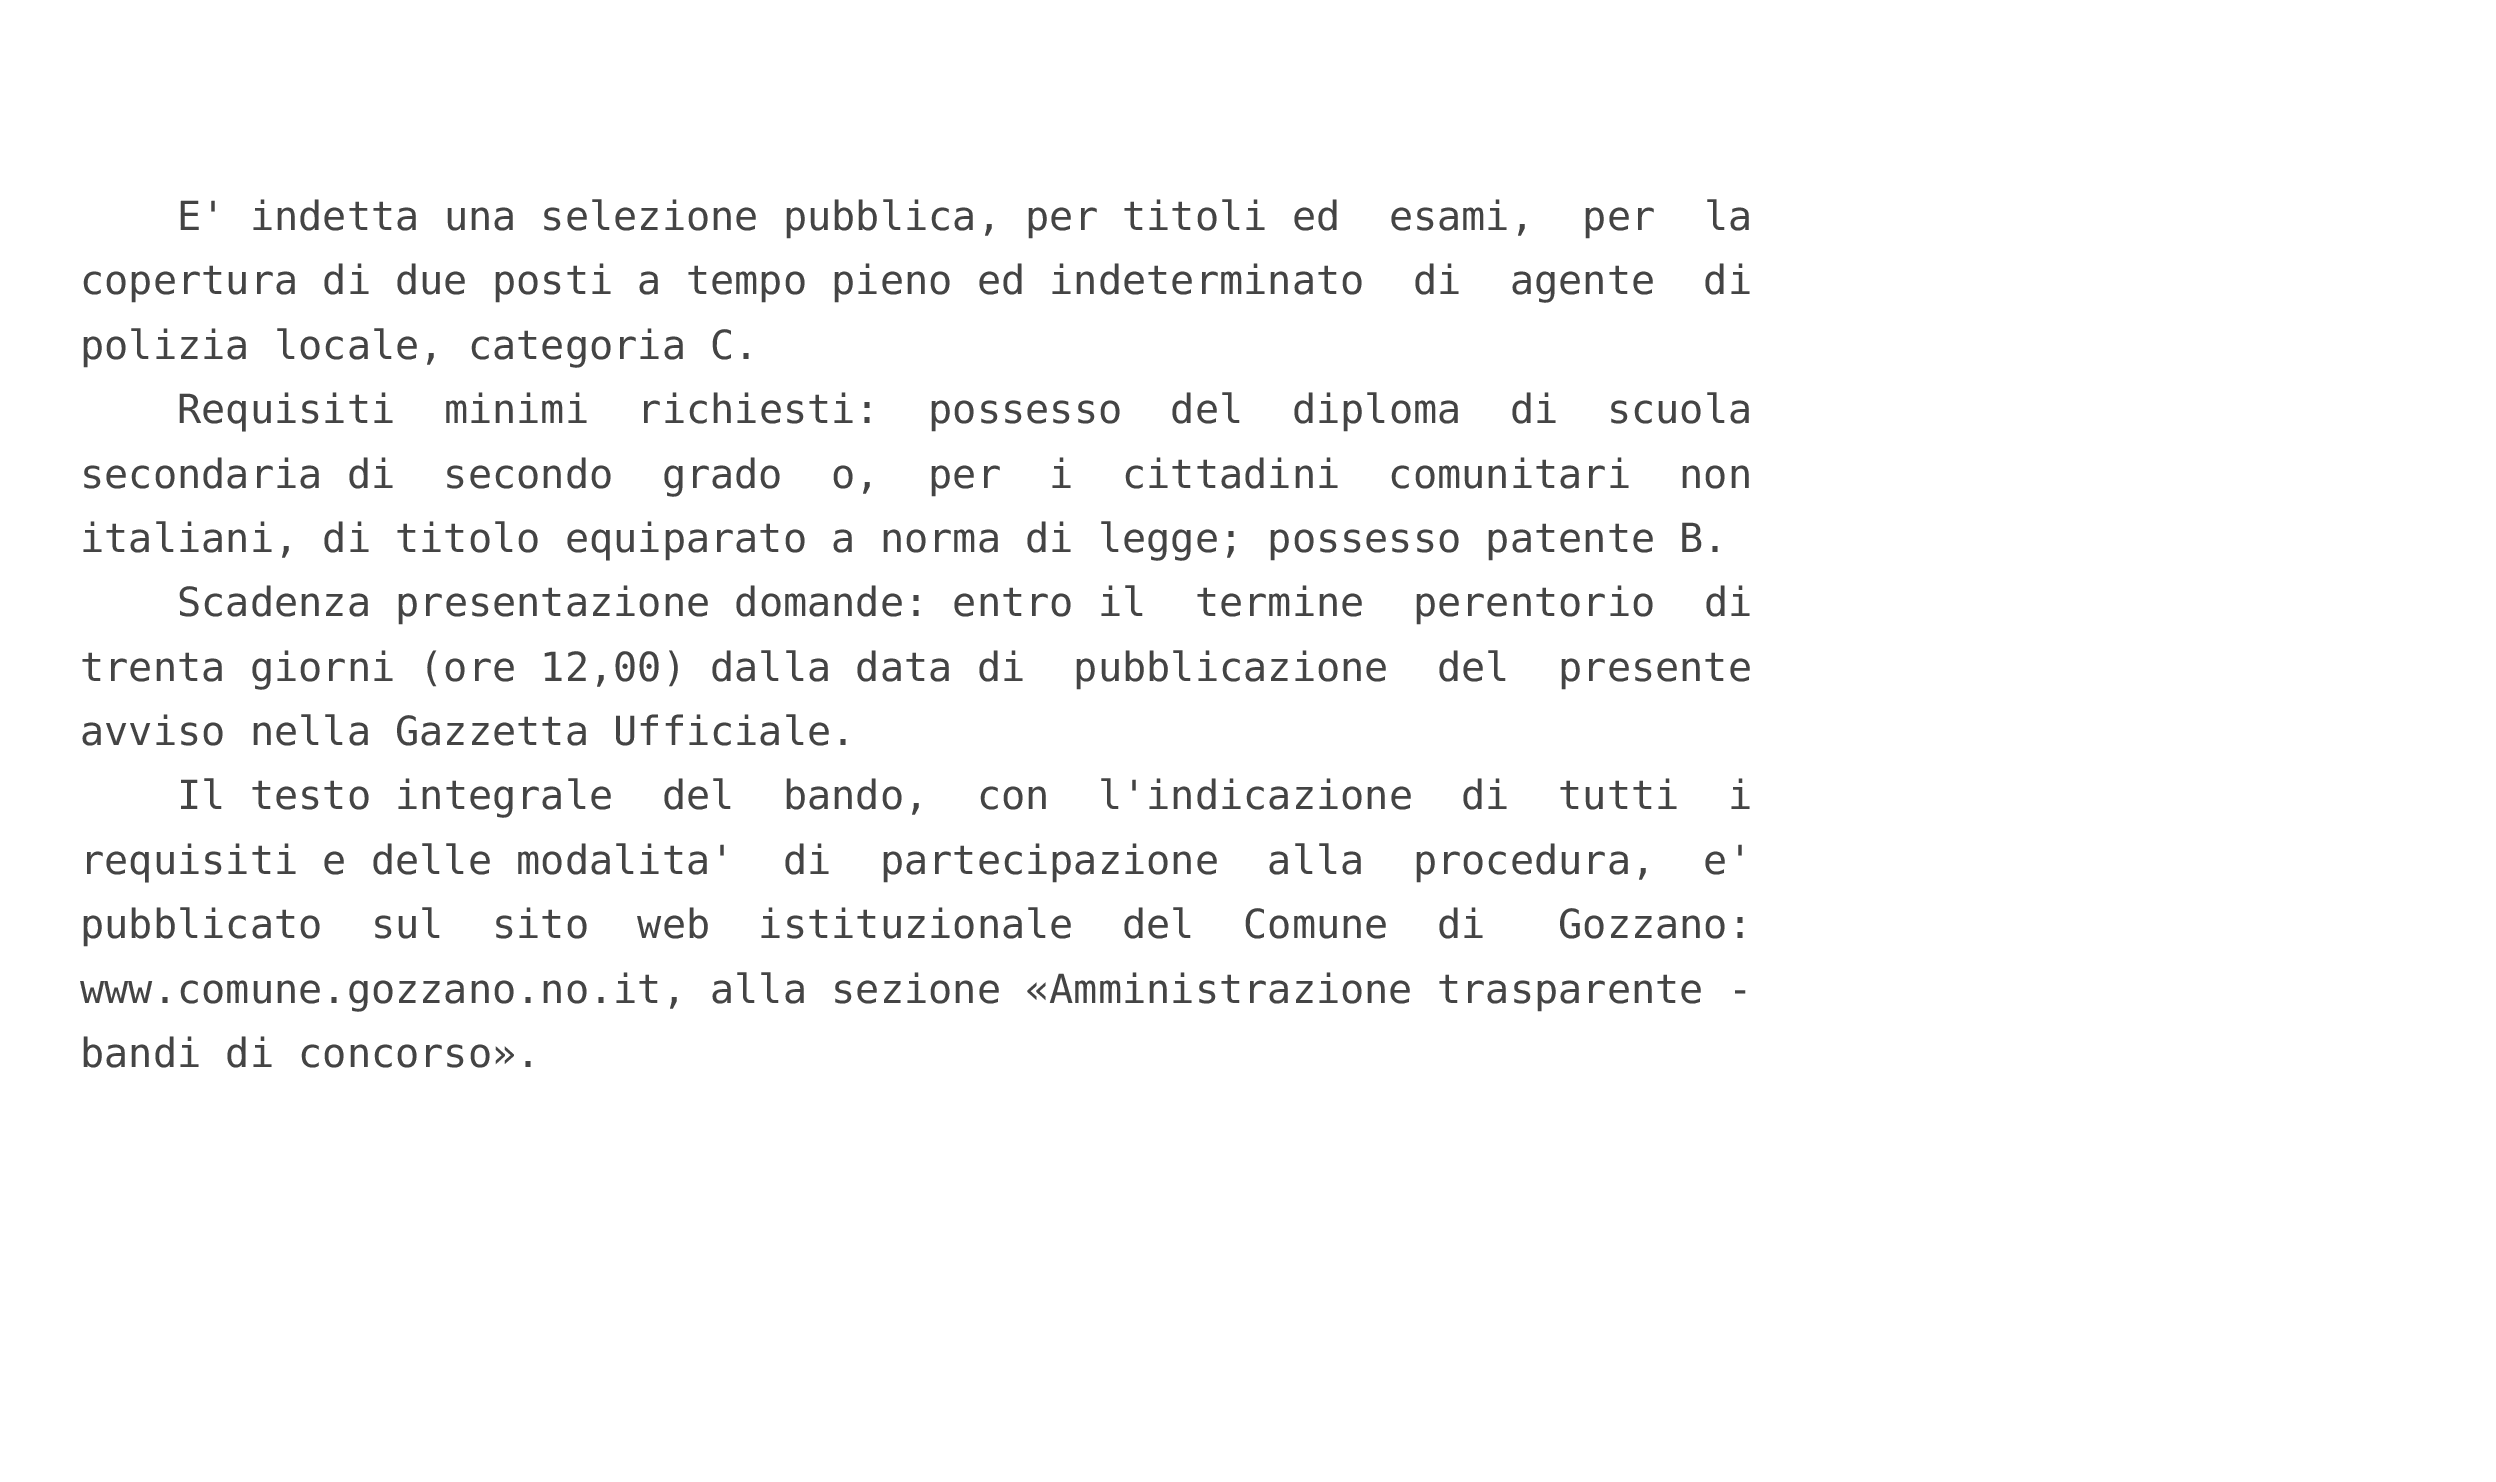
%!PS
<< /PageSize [2496 1482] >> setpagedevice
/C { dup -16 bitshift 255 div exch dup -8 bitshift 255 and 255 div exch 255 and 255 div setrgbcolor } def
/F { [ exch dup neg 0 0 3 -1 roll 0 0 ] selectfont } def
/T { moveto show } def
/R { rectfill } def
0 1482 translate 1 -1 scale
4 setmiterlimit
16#FFFFFF C
0 0 2496 1482 R
/DejaVuSansMono-Regular 40.25 F
16#444444 C
(E' indetta una selezione pubblica, per titoli ed  esami,  per  la) 177 230 T
(copertura di due posti a tempo pieno ed indeterminato  di  agente  di) 80 294 T
(polizia locale, categoria C.) 80 359 T
(Requisiti  minimi  richiesti:  possesso  del  diploma  di  scuola) 177 423 T
(secondaria di  secondo  grado  o,  per  i  cittadini  comunitari  non) 80 488 T
(italiani, di titolo equiparato a norma di legge; possesso patente B.) 80 552 T
(Scadenza presentazione domande: entro il  termine  perentorio  di) 177 616 T
(trenta giorni \(ore 12,00\) dalla data di  pubblicazione  del  presente) 80 681 T
(avviso nella Gazzetta Ufficiale.) 80 745 T
(Il testo integrale  del  bando,  con  l'indicazione  di  tutti  i) 177 809 T
(requisiti e delle modalita'  di  partecipazione  alla  procedura,  e') 80 874 T
(pubblicato  sul  sito  web  istituzionale  del  Comune  di   Gozzano:) 80 938 T
(www.comune.gozzano.no.it, alla sezione «Amministrazione trasparente -) 80 1003 T
(bandi di concorso».) 80 1067 T
showpage
